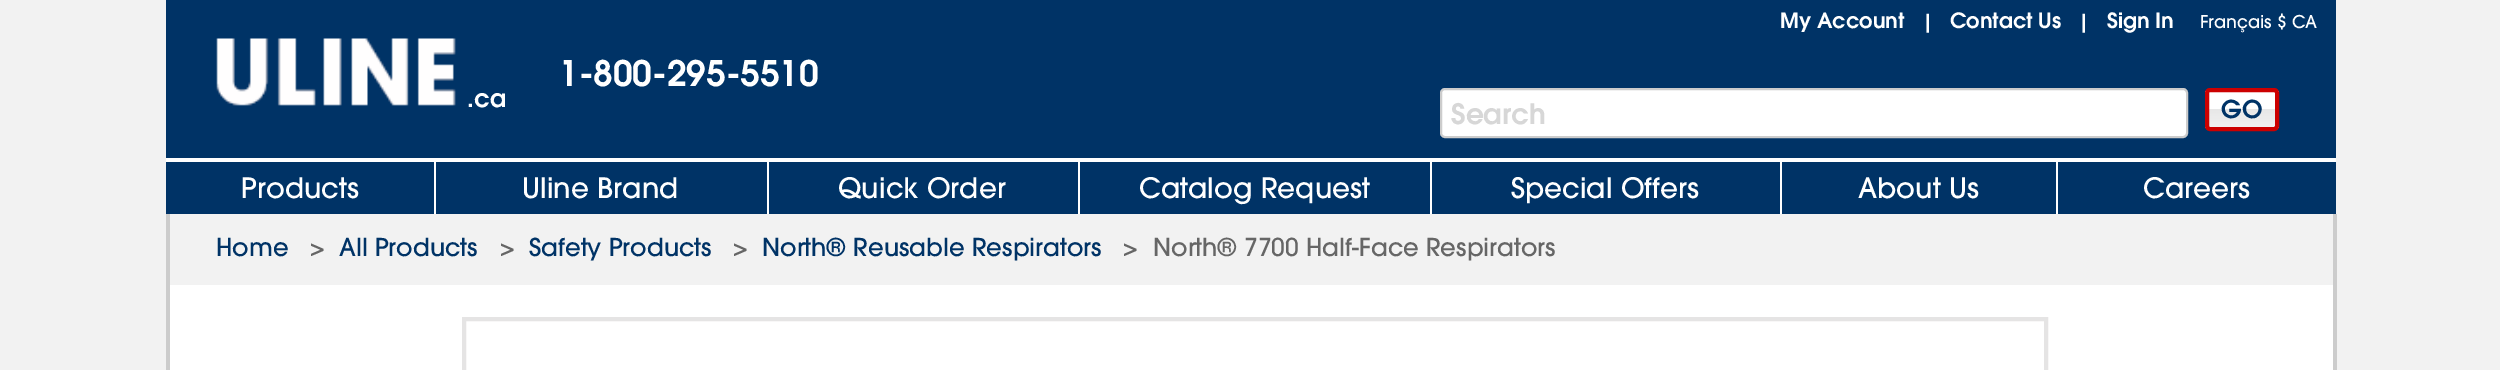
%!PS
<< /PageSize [2500 370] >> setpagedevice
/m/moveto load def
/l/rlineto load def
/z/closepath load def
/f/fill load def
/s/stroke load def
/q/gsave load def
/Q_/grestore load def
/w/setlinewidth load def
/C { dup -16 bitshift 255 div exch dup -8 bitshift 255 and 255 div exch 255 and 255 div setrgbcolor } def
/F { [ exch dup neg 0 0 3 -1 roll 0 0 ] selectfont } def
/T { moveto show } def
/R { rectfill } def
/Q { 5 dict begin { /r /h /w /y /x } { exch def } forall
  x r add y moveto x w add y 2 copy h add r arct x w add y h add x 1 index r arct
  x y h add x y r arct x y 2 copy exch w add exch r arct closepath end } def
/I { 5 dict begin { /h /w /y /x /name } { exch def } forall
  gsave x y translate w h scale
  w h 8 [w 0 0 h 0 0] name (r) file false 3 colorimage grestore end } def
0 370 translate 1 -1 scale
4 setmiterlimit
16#F2F2F2 C
0 0 2500 370 R
16#FFFFFF C
170 285 2163 85 R
16#003366 C
166 0 2170 214 R
/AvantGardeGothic-SemiBold 21 F
16#FFFFFF C
(My Account) 1780 28 T
/AvantGardeGothic-SemiBold 19 F
(|) 1922 28 T
/AvantGardeGothic-SemiBold 21 F
(Contact Us) 1950 28 T
/AvantGardeGothic-SemiBold 19 F
(|) 2078 28 T
/AvantGardeGothic-SemiBold 21 F
(Sign In) 2107 28 T
/AvantGardeGothic-Medium 17.5 F
(Français $ CA) 2200 28 T
/AvantGardeGothic-SemiBold 35 F
(1-800-295-5510) 559 86 T
(1.rgb) 216 38 240 68 I
/AvantGardeGothic-SemiBold 24.5 F
(.ca) 467 107 T
1441 89 746 48 4 Q q f Q_
16#CCCCCC C
2 w
s
/AvantGardeGothic-SemiBold 28 F
16#D7D7D7 C
(Search) 1451 124 T
q
2205 88 74 43 5 Q clip newpath
q 2205 91 m 74 0 l 0 37 l -74 0 l z clip newpath
<< /ShadingType 2 /ColorSpace /DeviceRGB /Coords [2242 91 2242 128] /Extend [true true] /Function << /FunctionType 3 /Domain [0 1] /Functions [<< /FunctionType 2 /Domain [0 1] /C0 [1 1 1] /C1 [1 1 1] /N 1 >> << /FunctionType 2 /Domain [0 1] /C0 [.906 .906 .906] /C1 [.945 .945 .945] /N 1 >>] /Bounds [.5] /Encode [0 1 0 1] >> >> shfill Q_
Q_
16#CC0000 C
4 w
2207 90 70 39 3 Q s
/AvantGardeGothic-SemiBold 24.5 F
16#003366 C
(GO) 2221 118 T
16#FFFFFF C
166 158 2170 4 R
434 161 2 53 R
/AvantGardeGothic-Medium 28 F
(Products) 241 198 T
767 161 2 53 R
(Uline Brand) 522 198 T
1078 161 2 53 R
(Quick Order) 838 198 T
1430 161 2 53 R
(Catalog Request) 1139 198 T
1780 161 2 53 R
(Special Offers) 1511 198 T
2056 161 2 53 R
(About Us) 1858 198 T
(Careers) 2143 198 T
16#CCCCCC C
2333 214 4 156 R
166 214 4 156 R
/AvantGardeGothic-Medium 24.5 F
16#003366 C
(Home) 216 256 T
16#666666 C
(>) 310 256 T
16#003366 C
(All Products) 339 256 T
16#666666 C
(>) 500 256 T
16#003366 C
(Safety Products) 529 256 T
16#666666 C
(>) 733 256 T
16#003366 C
(North® Reusable Respirators) 762 256 T
16#666666 C
(>) 1123 256 T
(North® 7700 Half-Face Respirators) 1153 256 T
16#E5E4E4 C
464 319 1582 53 rectstroke
showpage
